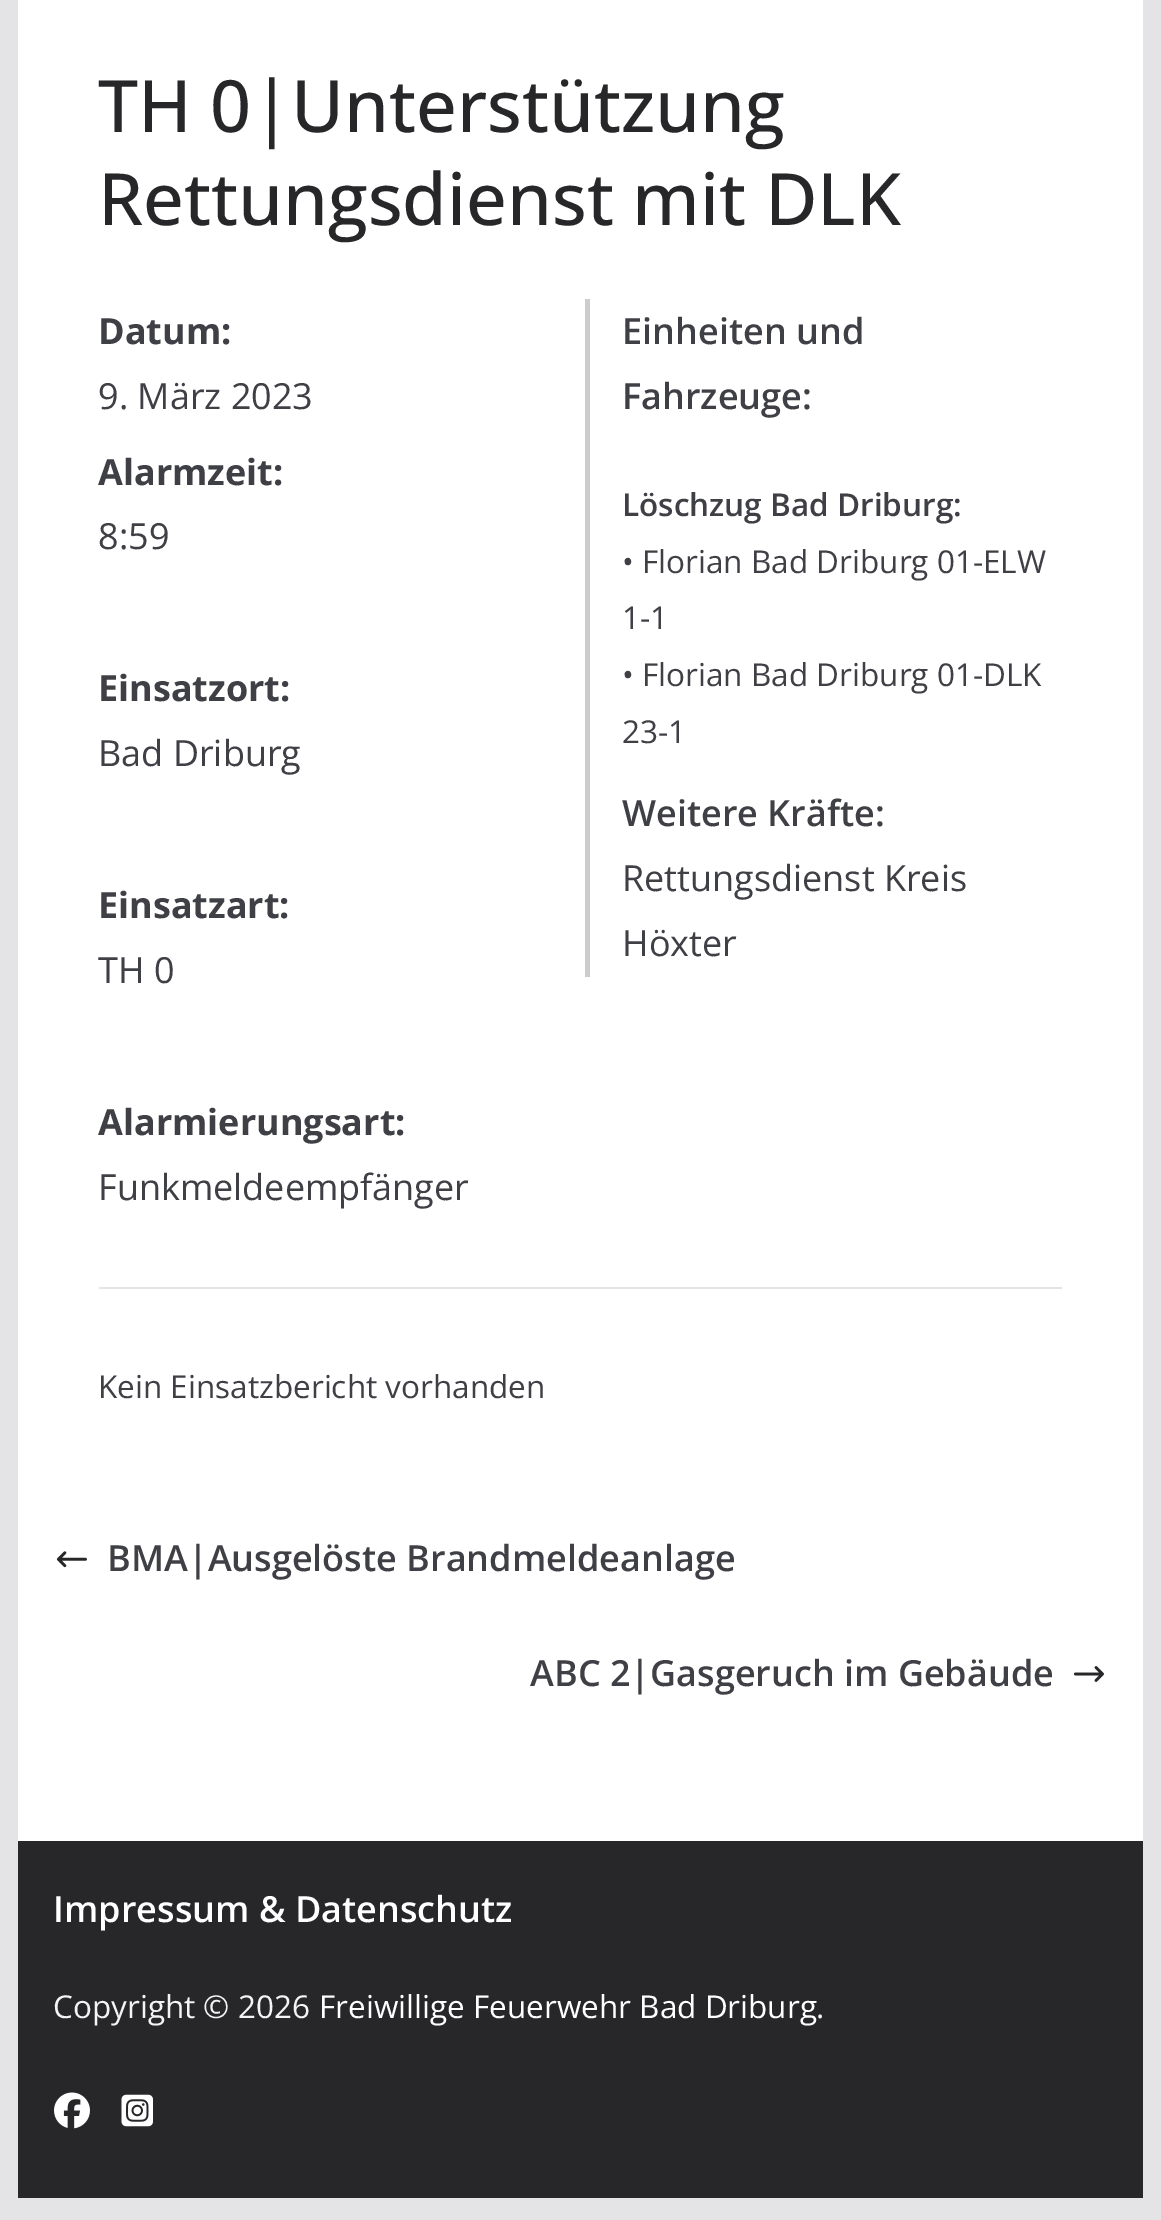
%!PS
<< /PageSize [1161 2220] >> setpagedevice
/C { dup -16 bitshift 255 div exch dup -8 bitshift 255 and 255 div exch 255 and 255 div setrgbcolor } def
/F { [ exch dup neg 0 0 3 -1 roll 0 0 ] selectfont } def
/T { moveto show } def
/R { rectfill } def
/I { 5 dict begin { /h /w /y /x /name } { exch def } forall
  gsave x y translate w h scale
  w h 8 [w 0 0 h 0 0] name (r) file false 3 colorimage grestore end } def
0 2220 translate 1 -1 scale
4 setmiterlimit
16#E4E4E7 C
0 0 1161 2220 R
16#FFFFFF C
18 0 1125 1841 R
/OpenSans-Medium 72 F
16#27272A C
(TH 0|Unterstützung) 98 132 T
(Rettungsdienst mit DLK) 98 225 T
/OpenSans-Bold 36 F
16#3F3F46 C
(Datum:) 98 344 T
/OpenSans-Regular 36 F
(9. März 2023) 98 409 T
/OpenSans-Bold 36 F
(Alarmzeit:) 98 485 T
/OpenSans-Regular 36 F
(8:59) 98 549 T
/OpenSans-Bold 36 F
(Einsatzort:) 98 701 T
/OpenSans-Regular 36 F
(Bad Driburg) 98 766 T
/OpenSans-Bold 36 F
(Einsatzart:) 98 918 T
/OpenSans-Regular 36 F
(TH 0) 98 983 T
/OpenSans-Bold 36 F
(Alarmierungsart:) 98 1135 T
/OpenSans-Regular 36 F
(Funkmeldeempfänger) 98 1200 T
16#CCCCCC C
585 299 5 678 R
/OpenSans-SemiBold 36 F
16#3F3F46 C
(Einheiten und) 622 344 T
(Fahrzeuge:) 622 409 T
/OpenSans-SemiBold 31.5 F
(Löschzug Bad Driburg:) 622 516 T
/OpenSans-Regular 31.5 F
(• Florian Bad Driburg 01-ELW) 622 573 T
(1-1) 622 629 T
(• Florian Bad Driburg 01-DLK) 622 686 T
(23-1) 622 743 T
/OpenSans-SemiBold 36 F
(Weitere Kräfte:) 622 826 T
/OpenSans-Regular 36 F
(Rettungsdienst Kreis) 622 891 T
(Höxter) 622 956 T
16#E4E4E7 C
99 1287 963 2 R
/OpenSans-Regular 31.5 F
16#3F3F46 C
(Kein Einsatzbericht vorhanden) 98 1398 T
(1.rgb) 56 1551 31 17 I
/OpenSans-SemiBold 36 F
(BMA|Ausgelöste Brandmeldeanlage) 107 1571 T
(ABC 2|Gasgeruch im Gebäude) 530 1686 T
(2.rgb) 1074 1666 30 16 I
16#27272A C
18 1841 1125 357 R
16#FFFFFF C
(Impressum & Datenschutz) 53 1922 T
/OpenSans-Regular 31.5 F
16#F4F4F5 C
(Copyright © 2026) 53 2018 T
16#FFFFFF C
(Freiwillige Feuerwehr Bad Driburg) 319 2018 T
16#F4F4F5 C
(.) 816 2018 T
(3.rgb) 54 2092 36 37 I
(4.rgb) 121 2094 32 33 I
showpage
